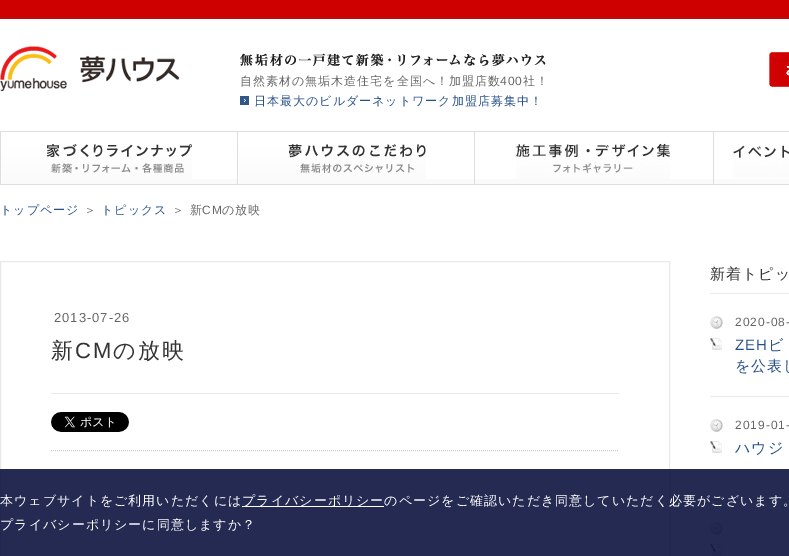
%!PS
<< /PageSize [789 556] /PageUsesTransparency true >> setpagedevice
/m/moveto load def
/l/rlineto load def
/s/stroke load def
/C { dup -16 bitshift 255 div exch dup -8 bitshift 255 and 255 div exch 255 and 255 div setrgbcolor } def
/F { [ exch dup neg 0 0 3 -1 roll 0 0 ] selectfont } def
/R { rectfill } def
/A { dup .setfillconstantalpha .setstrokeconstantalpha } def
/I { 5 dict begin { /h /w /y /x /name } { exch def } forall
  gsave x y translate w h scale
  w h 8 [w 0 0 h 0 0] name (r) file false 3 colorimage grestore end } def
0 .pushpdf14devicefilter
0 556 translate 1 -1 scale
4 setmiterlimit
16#FFFFFF C
0 0 789 556 R
16#CE0000 C
0 0 789 16 R
16#C10707 C
0 16 789 3 R
(1.rgb) 0 46 180 46 I
(2.rgb) 769 52 20 35 I
(3.rgb) 240 53 306 13 I
/WenQuanYiZenHei-Medium 12 F
16#666666 C
240 85 m 1 0 (自然素材の無垢木造住宅を全国へ！加盟店数) ashow
/LiberationSans-Regular 12 F
500 85 m 1 0 (400) ashow
/WenQuanYiZenHei-Medium 12 F
523 85 m 1 0 (社！) ashow
(4.rgb) 240 96 9 9 I
16#275189 C
254 105 m 1 0 (日本最大のビルダーネットワーク加盟店募集中！) ashow
16#FAFAFA C
192 179 597 5 R
16#DDDDDD C
0 131 789 1 R
0 184 789 1 R
0 132 1 52 R
(5.rgb) 1 144 191 40 I
237 132 1 52 R
(6.rgb) 238 144 188 40 I
474 132 1 52 R
(7.rgb) 516 143 154 36 I
713 132 1 52 R
(8.rgb) 733 145 56 33 I
16#275189 C
0 214 m 1 0 (トップページ) ashow
16#666666 C
84 214 m 1 0 (＞) ashow
16#275189 C
101 214 m 1 0 (トピックス) ashow
16#666666 C
172 214 m 1 0 (＞ 新) ashow
/LiberationSans-Regular 12 F
202 214 m 1 0 (CM) ashow
/WenQuanYiZenHei-Medium 12 F
222 214 m 1 0 (の放映) ashow
16#E9E9E9 C
.5 261.5 669 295 rectstroke
51 393 568 1 R
/LiberationSans-Regular 13 F
16#666666 C
54 322 m 1 0 (2013-07-26) ashow
/WenQuanYiZenHei-Medium 22 F
16#333333 C
51 358 m 2 0 (新) ashow
/LiberationSans-Regular 22 F
75 358 m 2 0 (CM) ashow
/WenQuanYiZenHei-Medium 22 F
113 358 m 2 0 (の放映) ashow
16#CCCCCC C
[1 1] 0 setdash
51 450.5 m 568 0 l s
(9.rgb) 51 412 78 20 I
/WenQuanYiZenHei-Medium 15 F
16#333333 C
710 279 m 1 0 (新着トピッ) ashow
16#E9E9E9 C
710 293 79 1 R
710 396 79 1 R
(10.rgb) 710 316 13 13 I
/LiberationSans-Regular 12 F
16#666666 C
735 326 m 1 0 (2020-08-) ashow
(11.rgb) 710 338 12 12 I
/LiberationSans-Regular 15 F
16#275189 C
735 350 m 1 0 (ZEH) ashow
/WenQuanYiZenHei-Medium 15 F
768 350 m 1 0 (ビ) ashow
735 371 m 1 0 (を公表し) ashow
16#E9E9E9 C
710 499 79 1 R
(10.rgb) 710 419 13 13 I
/LiberationSans-Regular 12 F
16#666666 C
735 429 m 1 0 (2019-01-) ashow
(11.rgb) 710 441 12 12 I
/WenQuanYiZenHei-Medium 15 F
16#275189 C
735 453 m 1 0 (ハウジ) ashow
(10.rgb) 710 522 13 13 I
(11.rgb) 710 544 12 12 I
0.9 A
16#0C133F C
0 469 789 87 R
/WenQuanYiZenHei-Medium 13 F
1 A
16#FFFFFF C
0 505 m 1 0 (本ウェブサイトをご利用いただくには) ashow
242 506 142 1 R
242 505 m 1 0 (プライバシーポリシーのページをご確認いただき同意していただく必要がございます。) ashow
0 529 m 1 0 (プライバシーポリシーに同意しますか？) ashow
.poppdf14devicefilter showpage
